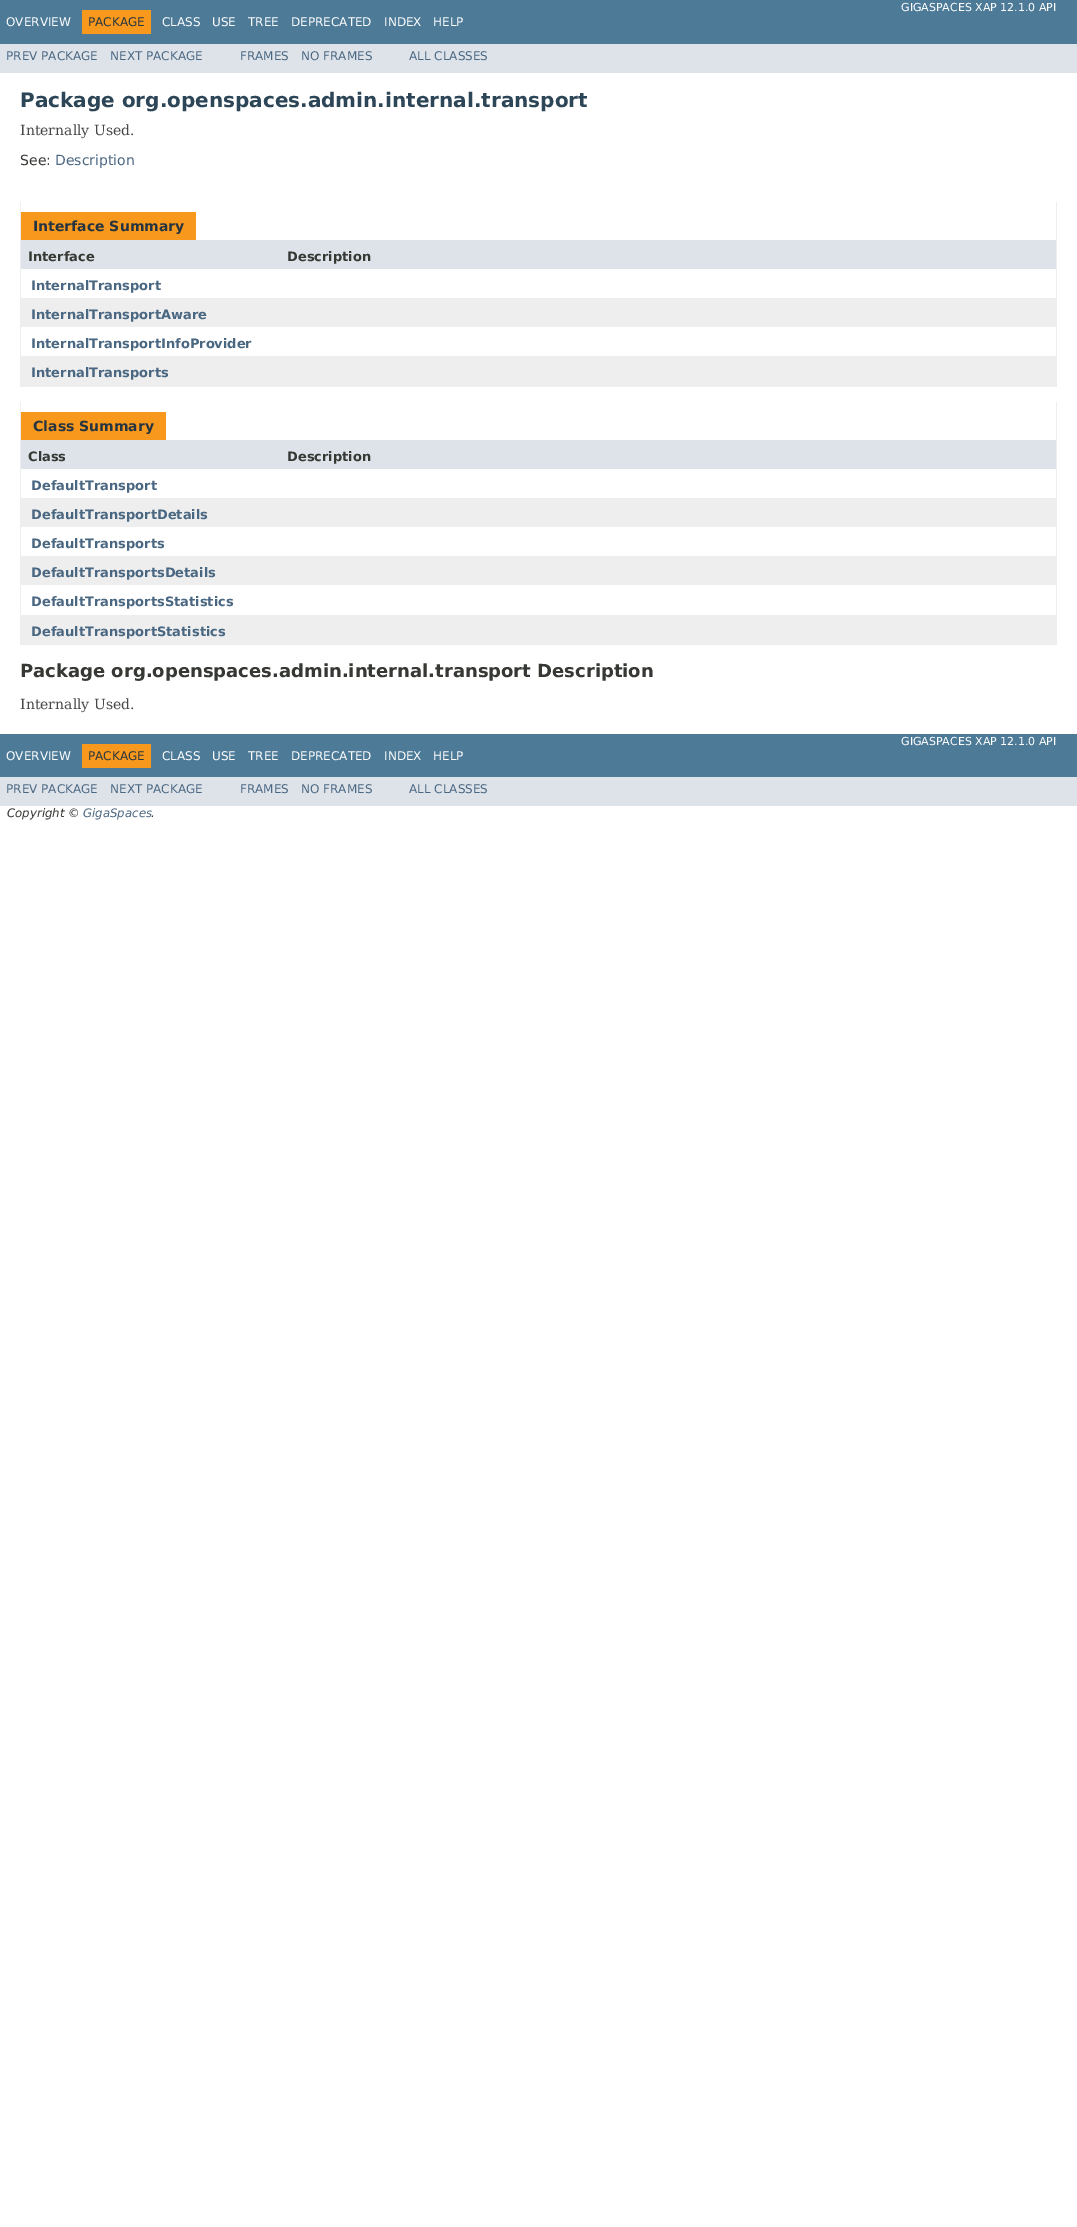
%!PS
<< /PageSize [1077 2227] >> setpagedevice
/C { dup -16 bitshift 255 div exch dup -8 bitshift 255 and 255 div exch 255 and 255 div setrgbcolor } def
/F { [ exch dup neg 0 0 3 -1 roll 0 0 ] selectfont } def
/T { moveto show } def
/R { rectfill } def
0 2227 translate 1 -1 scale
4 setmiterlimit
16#FFFFFF C
0 0 1077 2227 R
16#4D7A97 C
0 0 1077 44 R
/DejaVuSans-Regular 11 F
16#FFFFFF C
(GIGASPACES XAP 12.1.0 API) 901 11 T
/DejaVuSans-Regular 12 F
(OVERVIEW) 6 26 T
16#F8981D C
82 10 69 24 R
16#253441 C
(PACKAGE) 88 26 T
16#FFFFFF C
(CLASS) 162 26 T
(USE) 212 26 T
(TREE) 248 26 T
(DEPRECATED) 291 26 T
(INDEX) 384 26 T
(HELP) 433 26 T
16#DEE3E9 C
0 44 1077 29 R
16#4A6782 C
(PREV PACKAGE) 6 60 T
(NEXT PACKAGE) 110 60 T
(FRAMES) 240 60 T
(NO FRAMES) 301 60 T
(ALL CLASSES) 409 60 T
/DejaVuSans-Bold 20 F
16#2C4557 C
(Package org.openspaces.admin.internal.transport) 20 107 T
/DejaVuSerif-Regular 14 F
16#474747 C
(Internally Used.) 20 135 T
/DejaVuSans-Regular 14 F
16#353833 C
(See:) 20 165 T
16#4A6782 C
(Description) 55 165 T
16#EEEEEE C
1056 202 1 185 R
20 386 1037 1 R
20 202 1 185 R
16#F8981D C
21 212 175 28 R
/DejaVuSans-Bold 14 F
16#253441 C
(Interface Summary) 33 231 T
16#DEE3E9 C
21 240 1035 29 R
/DejaVuSans-Bold 13 F
16#353833 C
(Interface) 28 261 T
(Description) 287 261 T
16#4A6782 C
(InternalTransport) 31 290 T
16#EEEEEF C
21 298 1035 29 R
16#4A6782 C
(InternalTransportAware) 31 319 T
(InternalTransportInfoProvider) 31 348 T
16#EEEEEF C
21 356 1035 30 R
16#4A6782 C
(InternalTransports) 31 377 T
16#EEEEEE C
1056 402 1 243 R
20 644 1037 1 R
20 402 1 243 R
16#F8981D C
21 412 145 28 R
/DejaVuSans-Bold 14 F
16#253441 C
(Class Summary) 33 431 T
16#DEE3E9 C
21 440 1035 29 R
/DejaVuSans-Bold 13 F
16#353833 C
(Class) 28 461 T
(Description) 287 461 T
16#4A6782 C
(DefaultTransport) 31 490 T
16#EEEEEF C
21 498 1035 29 R
16#4A6782 C
(DefaultTransportDetails) 31 519 T
(DefaultTransports) 31 548 T
16#EEEEEF C
21 556 1035 29 R
16#4A6782 C
(DefaultTransportsDetails) 31 577 T
(DefaultTransportsStatistics) 31 606 T
16#EEEEEF C
21 615 1035 29 R
16#4A6782 C
(DefaultTransportStatistics) 31 636 T
/DejaVuSans-Bold 18 F
16#353833 C
(Package org.openspaces.admin.internal.transport Description) 20 677 T
/DejaVuSerif-Regular 14 F
16#474747 C
(Internally Used.) 20 709 T
16#4D7A97 C
0 734 1077 43 R
/DejaVuSans-Regular 11 F
16#FFFFFF C
(GIGASPACES XAP 12.1.0 API) 901 745 T
/DejaVuSans-Regular 12 F
(OVERVIEW) 6 760 T
16#F8981D C
82 744 69 24 R
16#253441 C
(PACKAGE) 88 760 T
16#FFFFFF C
(CLASS) 162 760 T
(USE) 212 760 T
(TREE) 248 760 T
(DEPRECATED) 291 760 T
(INDEX) 384 760 T
(HELP) 433 760 T
16#DEE3E9 C
0 777 1077 29 R
16#4A6782 C
(PREV PACKAGE) 6 793 T
(NEXT PACKAGE) 110 793 T
(FRAMES) 240 793 T
(NO FRAMES) 301 793 T
(ALL CLASSES) 409 793 T
/DejaVuSans-Italic 11.75 F
16#353833 C
(Copyright ©) 7 817 T
16#4A6782 C
(GigaSpaces) 83 817 T
16#353833 C
(.) 151 817 T
showpage
